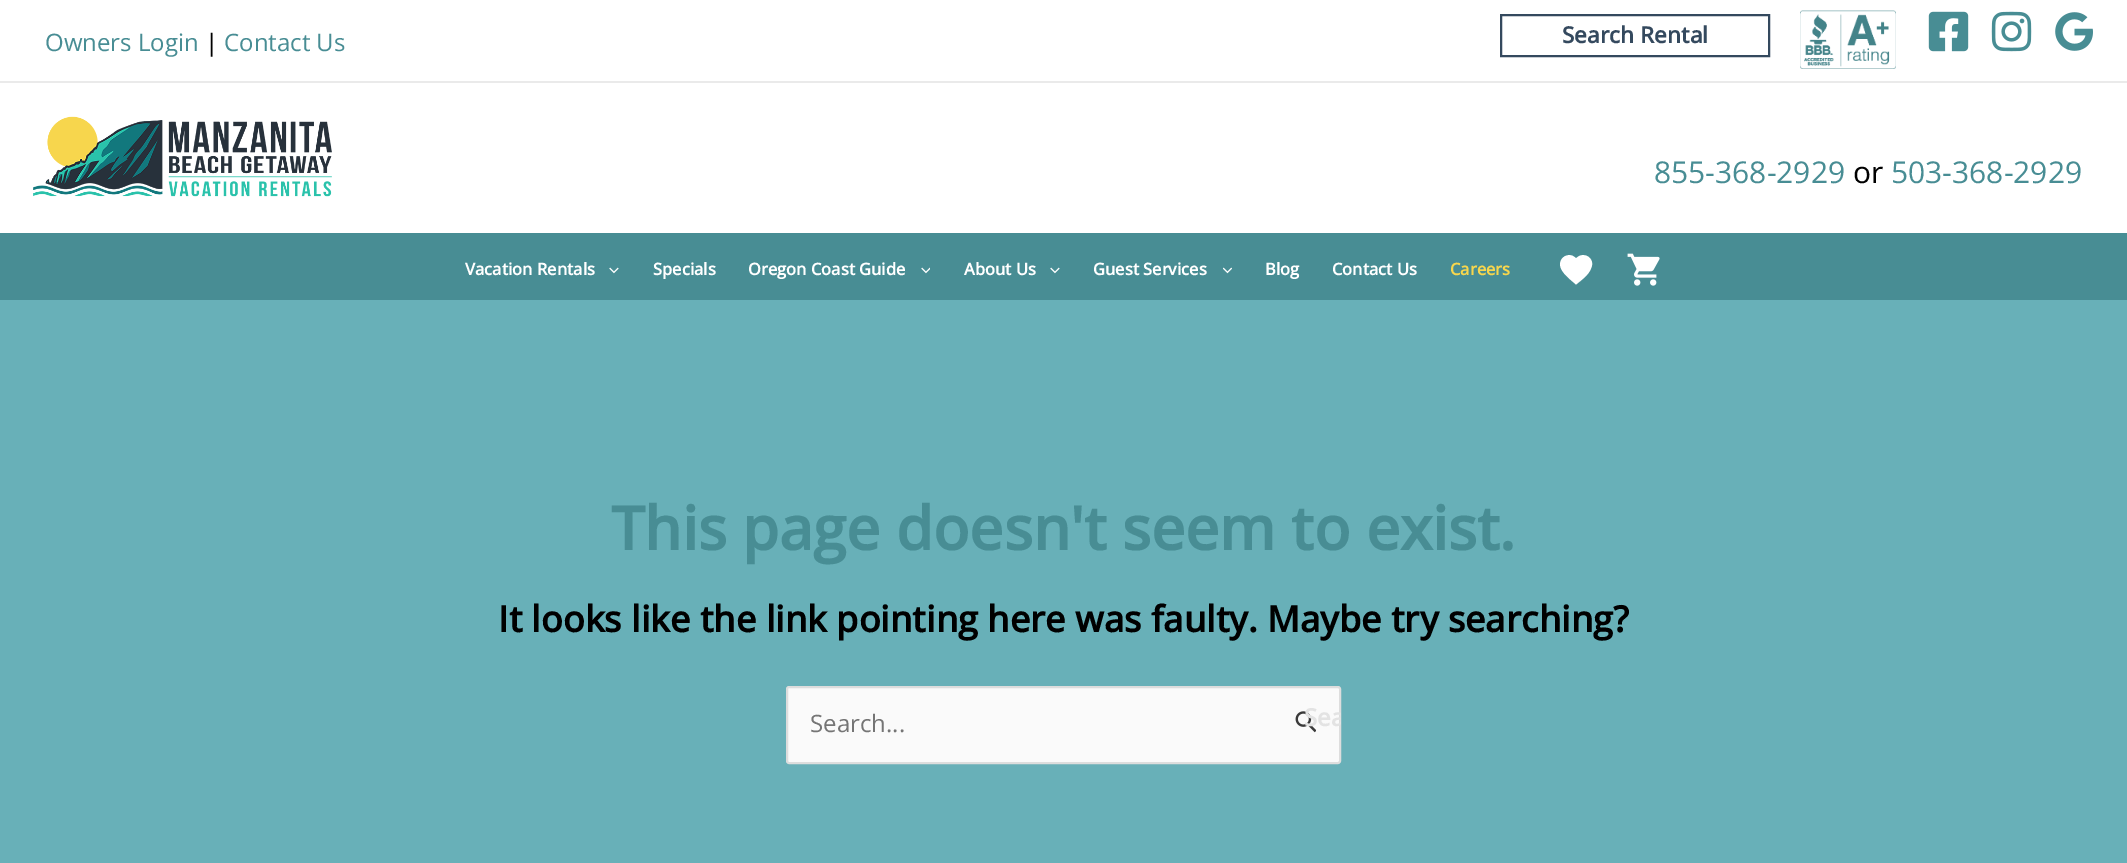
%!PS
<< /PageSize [2127 863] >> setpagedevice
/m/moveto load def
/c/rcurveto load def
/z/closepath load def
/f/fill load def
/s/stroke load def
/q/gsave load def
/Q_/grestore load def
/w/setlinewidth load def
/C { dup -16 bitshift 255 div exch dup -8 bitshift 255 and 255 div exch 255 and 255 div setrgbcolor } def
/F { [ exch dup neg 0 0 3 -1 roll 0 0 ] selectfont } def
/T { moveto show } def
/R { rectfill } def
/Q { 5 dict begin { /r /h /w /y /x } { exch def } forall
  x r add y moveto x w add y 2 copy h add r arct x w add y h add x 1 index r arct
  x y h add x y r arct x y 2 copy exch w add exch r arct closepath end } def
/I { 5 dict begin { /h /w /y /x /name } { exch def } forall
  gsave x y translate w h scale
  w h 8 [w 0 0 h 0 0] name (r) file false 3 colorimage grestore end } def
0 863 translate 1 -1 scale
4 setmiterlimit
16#68B0B8 C
0 0 2127 863 R
16#FFFFFF C
0 0 2127 81 R
16#EAEAEA C
0 81 2127 2 R
/OpenSans-Regular 24 F
16#488D94 C
(Owners Login) 45 51 T
16#000000 C
(|) 205 51 T
16#488D94 C
(Contact Us) 224 51 T
16#34495E C
2 w
1501 15 268 41 rectstroke
/OpenSans-Bold 22.5 F
(Search Rental) 1562 43 T
(1.rgb) 1800 10 96 59 I
(2.rgb) 1928 11 41 41 I
(3.rgb) 1991 11 41 41 I
(4.rgb) 2055 12 38 39 I
16#FFFFFF C
0 83 2127 150 R
(5.rgb) 33 116 299 81 I
/OpenSans-Regular 30 F
16#488D94 C
(855-368-2929) 1654 183 T
16#000000 C
(or) 1853 183 T
16#488D94 C
(503-368-2929) 1891 183 T
0 233 2127 67 R
/OpenSans-Bold 16.5 F
16#FFFFFF C
(Vacation Rentals) 465 275 T
(6.rgb) 609 267 10 7 I
(Specials) 653 275 T
(Oregon Coast Guide) 748 275 T
(7.rgb) 921 267 9 7 I
(About Us) 964 275 T
(6.rgb) 1050 267 10 7 I
(Guest Services) 1093 275 T
(8.rgb) 1223 267 9 7 I
(Blog) 1265 275 T
(Contact Us) 1332 275 T
16#F7D64D C
(Careers) 1450 275 T
16#FFFFFF C
1576 284.5 m -5 -4.5 -12 -9.5 -15 -16 c -4.5 -10.5 8.5 -18 15 -10 c 7 -8 20 -.5 15 10 c -2.5 6.5 -9.5 11.5 -15 16 c z f
(9.rgb) 1627 253 33 33 I
/OpenSans-Bold 60 F
16#488D94 C
(This page doesn't seem to exist.) 611 550 T
/OpenSans-Bold 36 F
16#000000 C
(It looks like the link pointing here was faulty. Maybe try searching?) 498 632 T
16#FAFAFA C
787 687 553 76 2 Q q f Q_
16#DDDDDD C
s
/OpenSans-Regular 24 F
16#757575 C
(Search...) 810 732 T
(10.rgb) 1295 711 21 22 I
q
1274 686 67 63 3 Q clip newpath
/OpenSans-Bold 24 F
16#E3E3E3 C
(Sea) 1304 726 T
Q_
showpage
